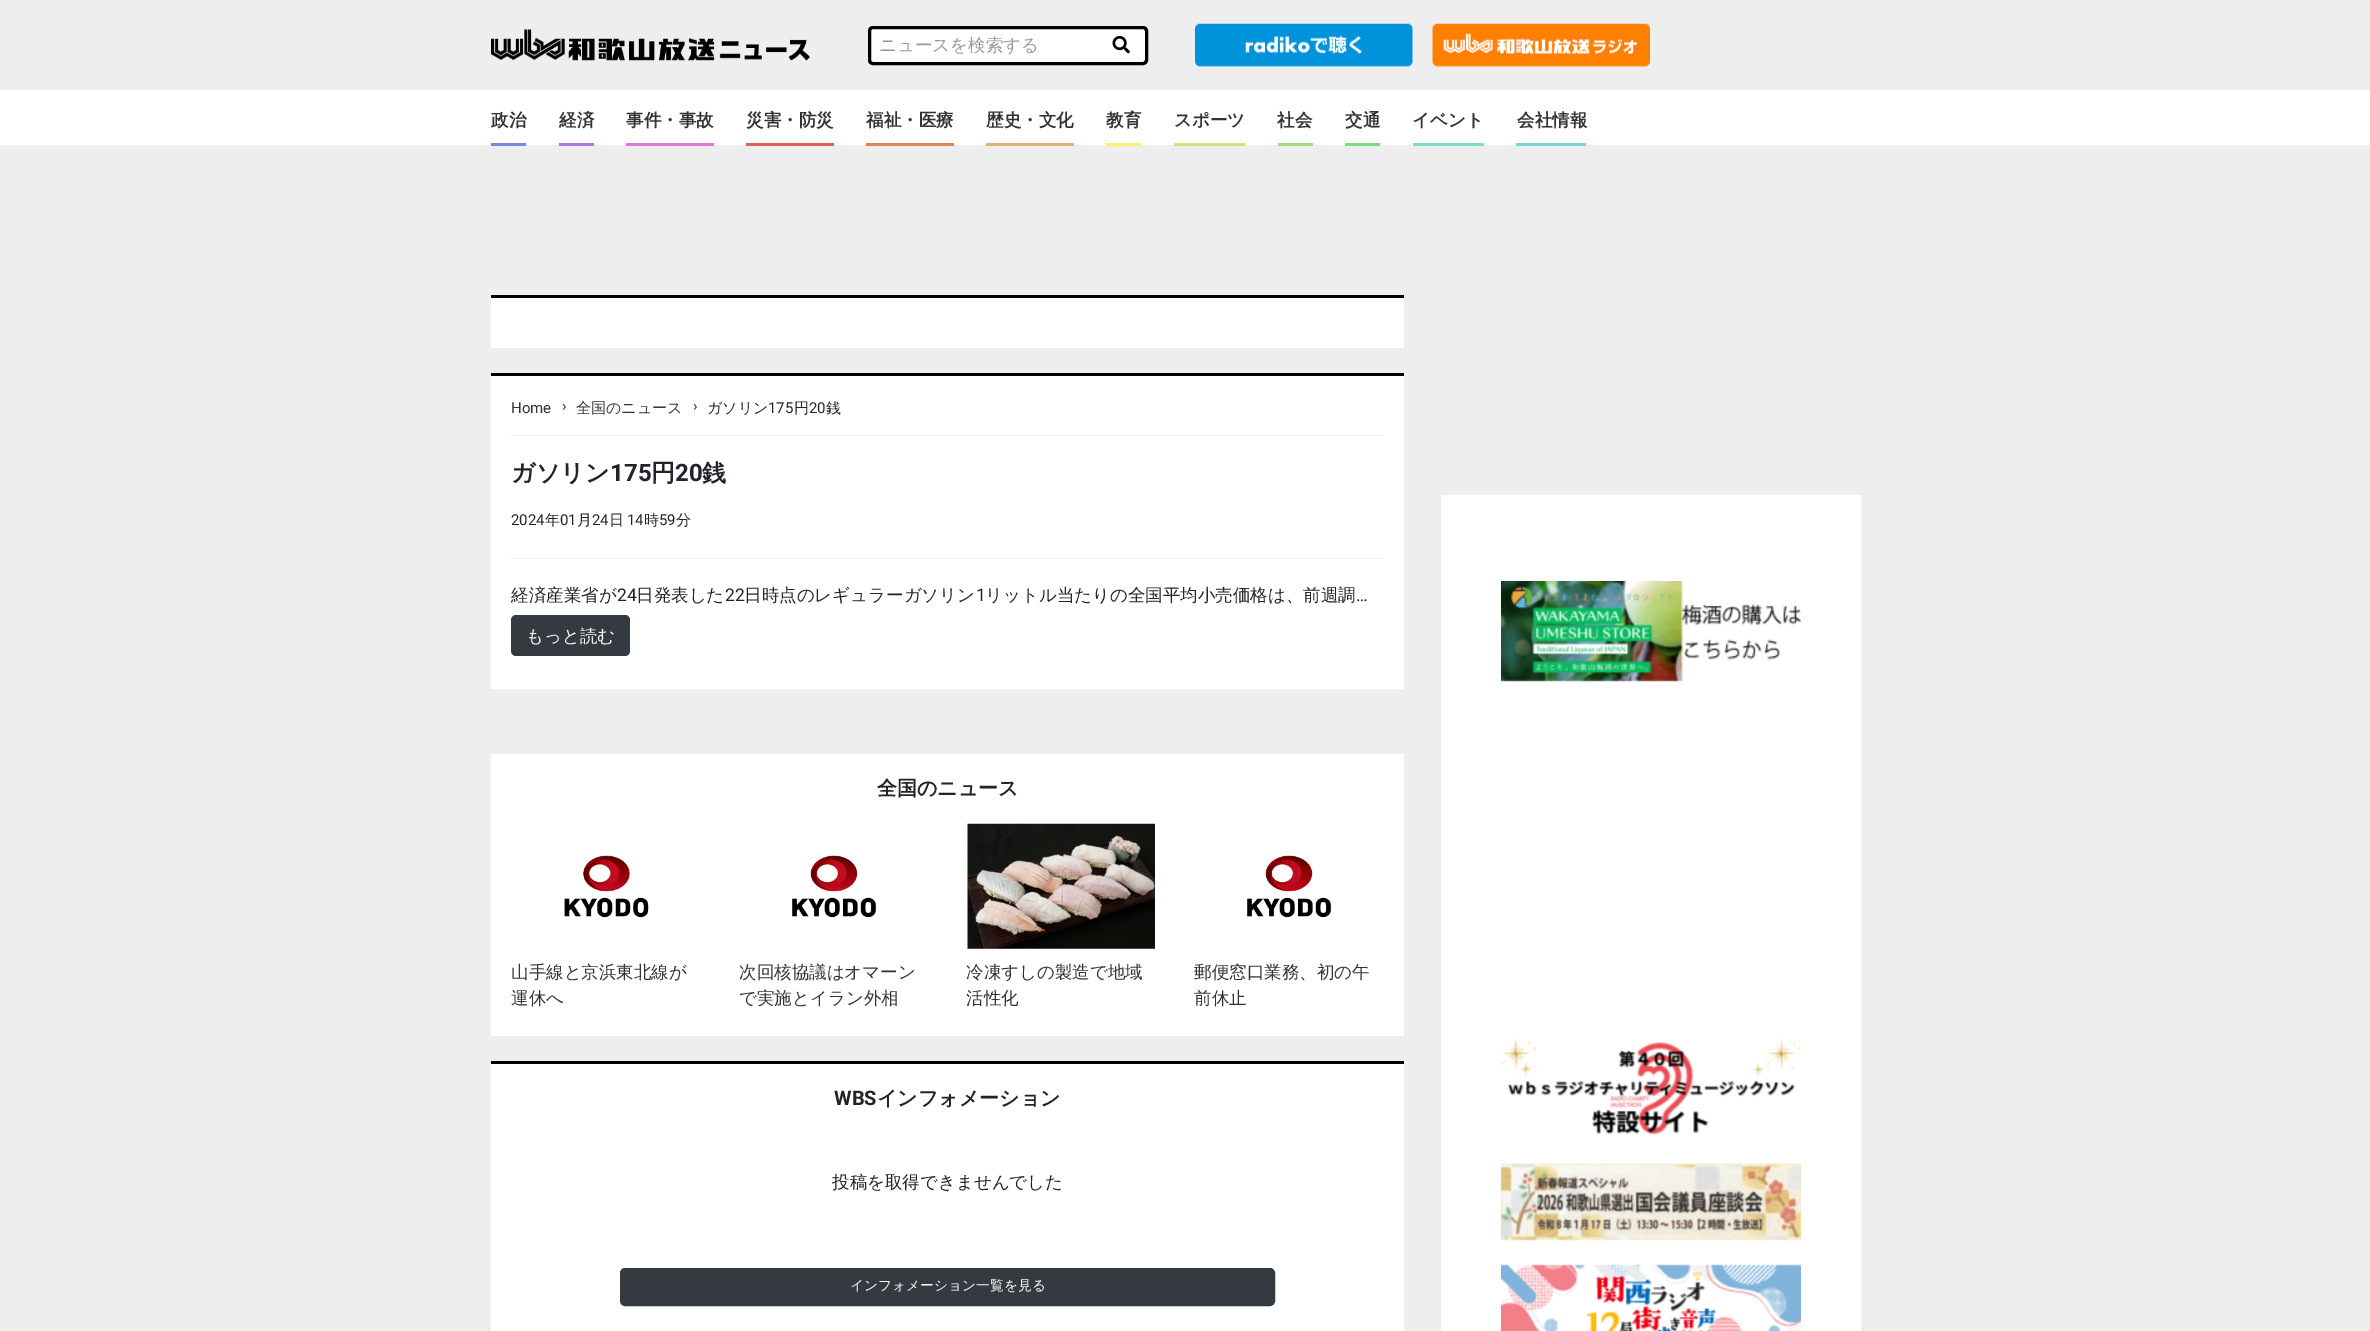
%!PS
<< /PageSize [2370 1331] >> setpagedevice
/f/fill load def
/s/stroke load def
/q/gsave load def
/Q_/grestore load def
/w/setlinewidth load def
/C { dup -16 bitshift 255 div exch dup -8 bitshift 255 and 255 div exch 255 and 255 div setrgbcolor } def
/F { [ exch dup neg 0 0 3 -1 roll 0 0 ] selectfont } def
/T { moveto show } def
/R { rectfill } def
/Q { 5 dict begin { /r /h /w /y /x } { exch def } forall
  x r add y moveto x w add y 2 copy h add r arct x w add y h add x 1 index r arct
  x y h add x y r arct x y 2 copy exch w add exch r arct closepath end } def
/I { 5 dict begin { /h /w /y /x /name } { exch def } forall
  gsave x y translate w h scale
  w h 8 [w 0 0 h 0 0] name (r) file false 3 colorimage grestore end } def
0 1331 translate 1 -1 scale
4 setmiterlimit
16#EEEEEE C
0 0 2370 1331 R
(1.rgb) 491 29 319 32 I
16#FFFFFF C
869.5 27.5 277 36 3.5 Q q f Q_
16#000000 C
3 w
s
/WenQuanYiZenHei-Medium 17.5 F
16#999999 C
(ニュースを検索する) 879 51 T
(2.rgb) 1112 35 18 19 I
(3.rgb) 1195 23 218 44 I
(4.rgb) 1432 23 218 44 I
16#FFFFFF C
0 90 2370 55 R
16#788ADE C
491 143 35 3 R
/WenQuanYiZenHei-Bold 17.5 F
16#333333 C
(政治) 491 126 T
16#B378DE C
559 143 35 3 R
16#333333 C
(経済) 559 126 T
16#DE78D6 C
626 143 88 3 R
16#333333 C
(事件・事故) 626 126 T
16#DE6157 C
746 143 88 3 R
16#333333 C
(災害・防災) 746 126 T
16#DE8457 C
866 143 88 3 R
16#333333 C
(福祉・医療) 866 126 T
16#DEB378 C
986 143 88 3 R
16#333333 C
(歴史・文化) 986 126 T
16#FCF16E C
1106 143 35 3 R
16#333333 C
(教育) 1106 126 T
16#D6DE78 C
1174 143 71 3 R
16#333333 C
(スポーツ) 1174 126 T
16#A3DE78 C
1278 143 35 3 R
16#333333 C
(社会) 1277 126 T
16#78DE80 C
1345 143 35 3 R
16#333333 C
(交通) 1345 126 T
16#78DECD C
1413 143 71 3 R
16#333333 C
(イベント) 1412 126 T
16#78D6DE C
1516 143 70 3 R
16#333333 C
(会社情報) 1517 126 T
16#FFFFFF C
491 298 913 50 R
16#000000 C
491 295 913 3 R
16#FFFFFF C
491 376 913 313 R
16#000000 C
491 373 913 3 R
/Roboto-Regular 15 F
16#333333 C
(Home) 511 413 T
16#212529 C
(›) 562 411 T
/WenQuanYiZenHei-Medium 15 F
16#333333 C
(全国のニュース) 576 413 T
/Roboto-Regular 15 F
16#212529 C
(›) 693 411 T
/WenQuanYiZenHei-Medium 15 F
(ガソリン) 707 413 T
/Roboto-Regular 15 F
(175) 768 413 T
/WenQuanYiZenHei-Medium 15 F
(円) 794 413 T
/Roboto-Regular 15 F
(20) 809 413 T
/WenQuanYiZenHei-Medium 15 F
(銭) 826 413 T
16#EEEEEE C
511 435 873 1 R
/WenQuanYiZenHei-Bold 24 F
16#212529 C
(ガソリン) 511 481 T
/Roboto-Bold 24 F
(175) 610 481 T
/WenQuanYiZenHei-Bold 24 F
(円) 651 481 T
/Roboto-Bold 24 F
(20) 675 481 T
/WenQuanYiZenHei-Bold 24 F
(銭) 702 481 T
/Roboto-Regular 15 F
(2024) 511 525 T
/WenQuanYiZenHei-Medium 15 F
(年) 545 525 T
/Roboto-Regular 15 F
(01) 560 525 T
/WenQuanYiZenHei-Medium 15 F
(月) 577 525 T
/Roboto-Regular 15 F
(24) 592 525 T
/WenQuanYiZenHei-Medium 15 F
(日) 609 525 T
/Roboto-Regular 15 F
(14) 627 525 T
/WenQuanYiZenHei-Medium 15 F
(時) 644 525 T
/Roboto-Regular 15 F
(59) 659 525 T
/WenQuanYiZenHei-Medium 15 F
(分) 676 525 T
16#EEEEEE C
511 558 873 1 R
/WenQuanYiZenHei-Medium 17.5 F
16#212529 C
(経済産業省が) 511 601 T
/Roboto-Regular 17.5 F
(24) 617 601 T
/WenQuanYiZenHei-Medium 17.5 F
(日発表した) 636 601 T
/Roboto-Regular 17.5 F
(22) 725 601 T
/WenQuanYiZenHei-Medium 17.5 F
(日時点のレギュラーガソリン) 744 601 T
/Roboto-Regular 17.5 F
(1) 976 601 T
/WenQuanYiZenHei-Medium 17.5 F
(リットル当たりの全国平均小売価格は、前週調) 985 601 T
/Roboto-Regular 17.5 F
(…) 1356 601 T
16#343A40 C
511 615 119 41 5 Q f
/WenQuanYiZenHei-Medium 17.5 F
16#FFFFFF C
(もっと読む) 526 642 T
491 754 913 282 R
/WenQuanYiZenHei-Bold 20 F
16#212529 C
(全国のニュース) 877 795 T
(5.rgb) 564 855 85 63 I
/WenQuanYiZenHei-Medium 17.5 F
16#333333 C
(山手線と京浜東北線が) 511 978 T
(運休へ) 511 1004 T
(6.rgb) 792 855 85 63 I
(次回核協議はオマーン) 739 978 T
(で実施とイラン外相) 739 1004 T
(7.rgb) 967 823 188 126 I
(冷凍すしの製造で地域) 966 978 T
(活性化) 966 1004 T
(6.rgb) 1247 855 85 63 I
(郵便窓口業務、初の午) 1194 978 T
(前休止) 1194 1004 T
16#FFFFFF C
491 1064 913 267 R
16#000000 C
491 1061 913 3 R
/Roboto-Bold 20 F
16#212529 C
(WBS) 834 1105 T
/WenQuanYiZenHei-Bold 20 F
(インフォメーション) 877 1105 T
/WenQuanYiZenHei-Medium 17.5 F
(投稿を取得できませんでした) 832 1188 T
16#343A40 C
620.5 1268.5 654 37 4.5 Q q f Q_
1 w
s
/WenQuanYiZenHei-Medium 13.75 F
16#FFFFFF C
(インフォメーション一覧を見る) 850 1290 T
1441 495 420 836 R
(8.rgb) 1501 581 300 101 I
(9.rgb) 1501 1038 300 97 I
(10.rgb) 1501 1163 300 78 I
(11.rgb) 1501 1264 300 67 I
showpage
